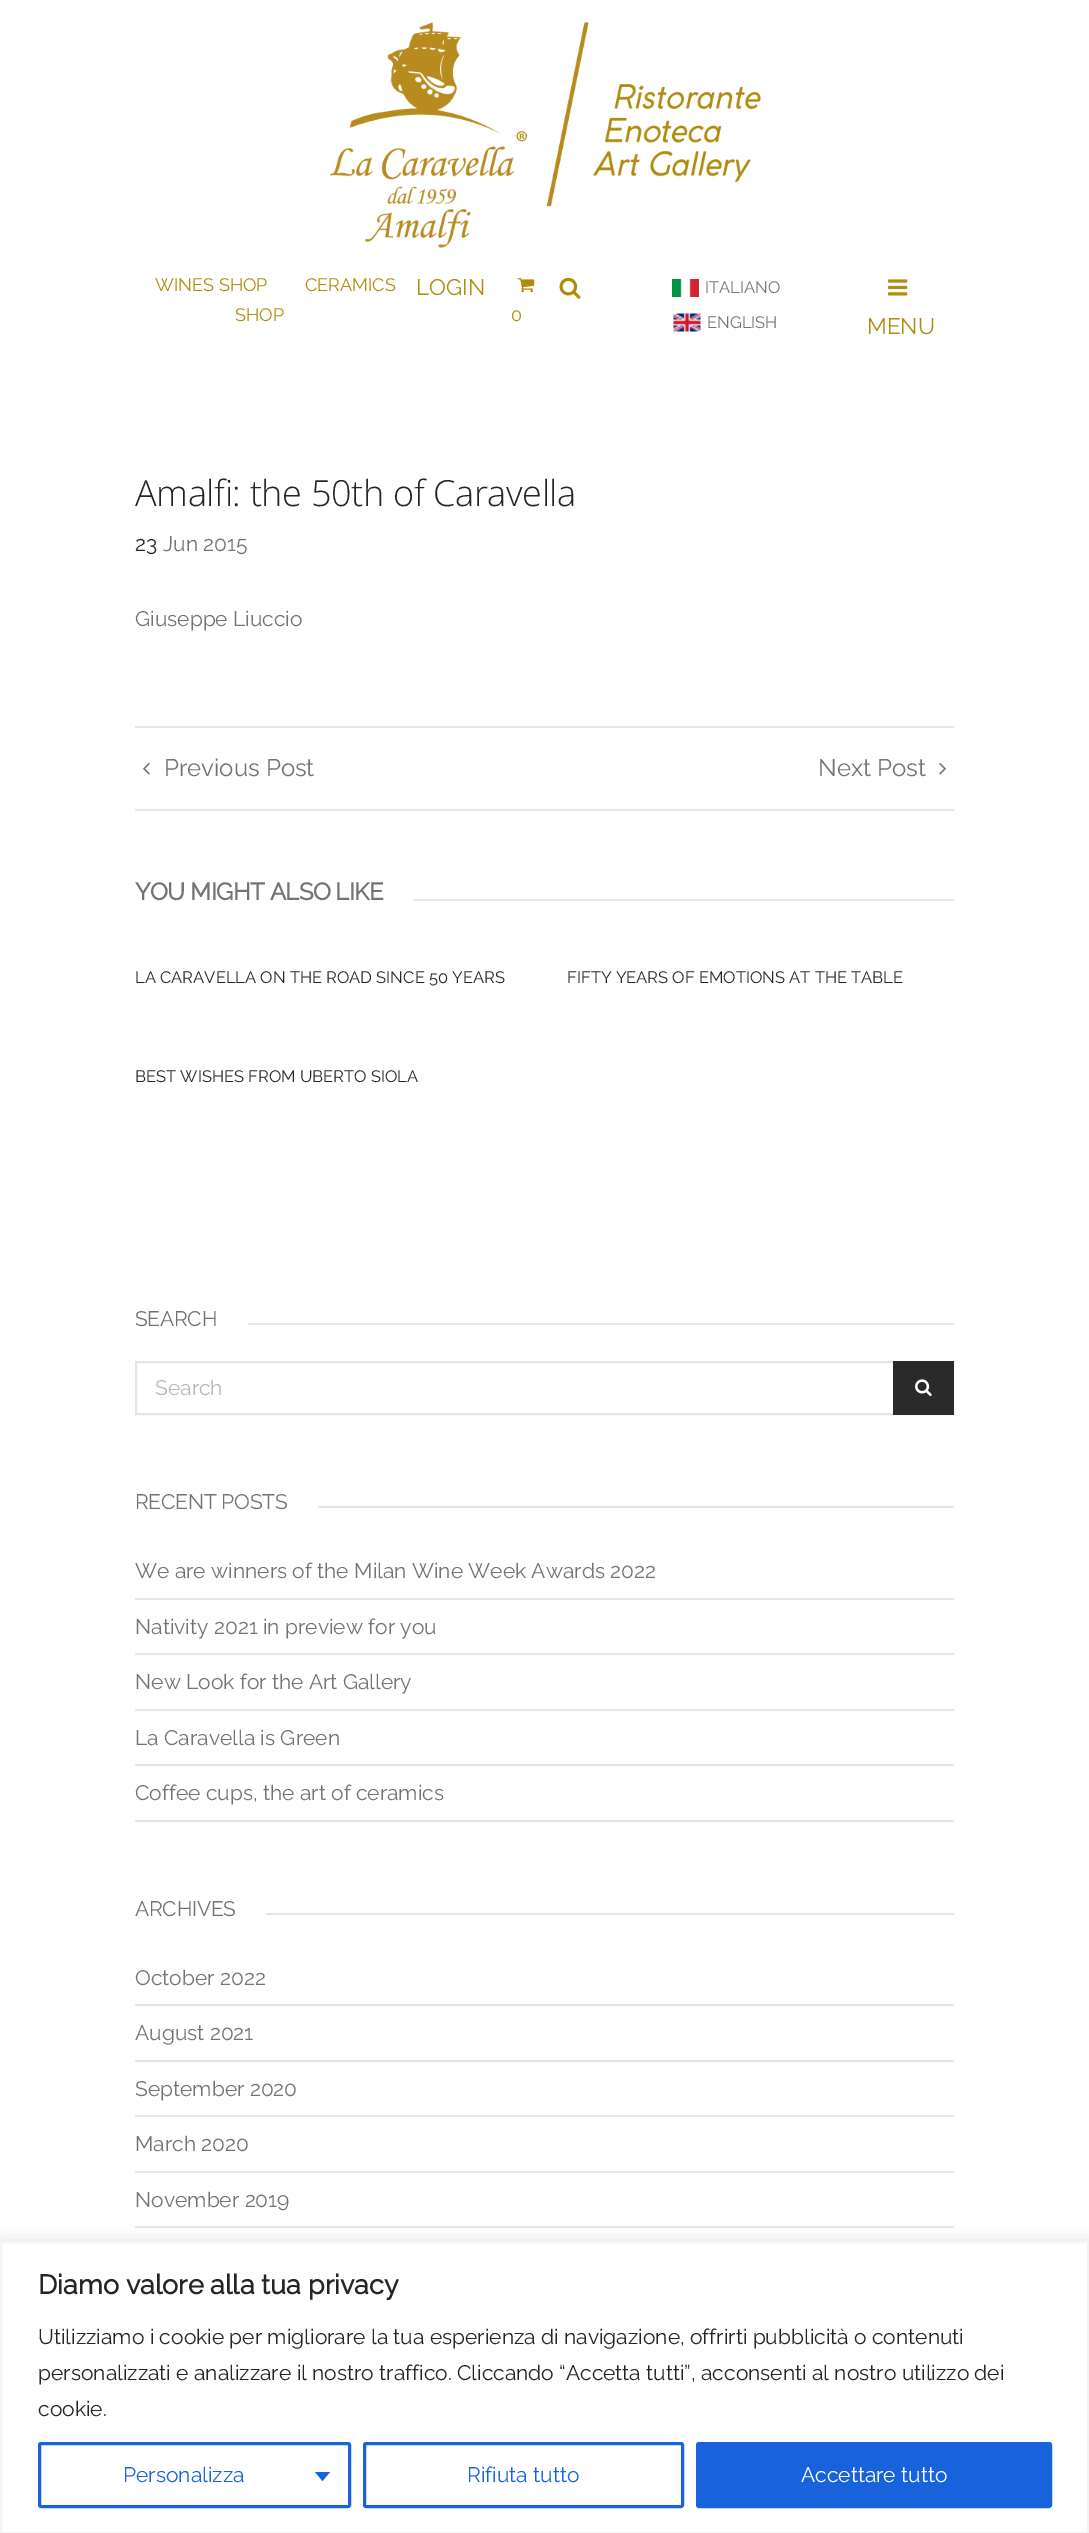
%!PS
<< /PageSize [1089 2533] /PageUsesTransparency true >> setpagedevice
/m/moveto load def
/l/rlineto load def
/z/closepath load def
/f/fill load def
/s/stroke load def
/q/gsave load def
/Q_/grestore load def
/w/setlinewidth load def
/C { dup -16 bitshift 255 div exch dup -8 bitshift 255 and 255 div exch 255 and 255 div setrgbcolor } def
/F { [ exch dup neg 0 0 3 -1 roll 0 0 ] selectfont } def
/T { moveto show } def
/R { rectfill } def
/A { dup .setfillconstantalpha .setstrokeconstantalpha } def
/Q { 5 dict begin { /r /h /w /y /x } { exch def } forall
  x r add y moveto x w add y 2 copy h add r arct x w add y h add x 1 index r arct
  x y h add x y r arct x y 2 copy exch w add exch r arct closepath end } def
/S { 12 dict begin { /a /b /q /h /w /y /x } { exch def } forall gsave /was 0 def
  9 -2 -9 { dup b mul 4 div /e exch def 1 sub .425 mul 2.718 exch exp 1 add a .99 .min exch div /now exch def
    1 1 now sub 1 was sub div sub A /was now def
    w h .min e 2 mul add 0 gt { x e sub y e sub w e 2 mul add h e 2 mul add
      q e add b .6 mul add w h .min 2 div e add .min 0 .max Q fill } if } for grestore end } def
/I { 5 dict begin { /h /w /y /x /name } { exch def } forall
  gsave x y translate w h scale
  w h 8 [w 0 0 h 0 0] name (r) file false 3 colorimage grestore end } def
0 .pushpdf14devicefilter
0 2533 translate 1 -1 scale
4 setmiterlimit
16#FFFFFF C
0 0 1089 2533 R
(1.rgb) 330 22 431 226 I
/Raleway-Thin 18 F
16#AF8C0C C
(WINES SHOP) 155 291 T
(CERAMICS) 305 291 T
(SHOP) 235 321 T
/Raleway-Thin 22.5 F
(LOGIN) 416 295 T
(2.rgb) 517 278 18 15 I
/Raleway-Thin 18 F
(0) 511 321 T
(3.rgb) 559 277 22 22 I
(4.rgb) 672 279 27 18 I
/Raleway-Thin 16.5 F
16#737373 C
(ITALIANO) 705 293 T
(5.rgb) 673 313 28 19 I
(ENGLISH) 707 328 T
(6.rgb) 888 279 20 17 I
/Raleway-Thin 22.5 F
16#AF8C0C C
(MENU) 867 334 T
/OpenSans-Light 36 F
16#252525 C
135 506 m -.35 0 (Amalfi: the 50th of Caravella) ashow
/Raleway-Thin 21 F
(23) 135 551 T
16#737373 C
(Jun 2015) 163 551 T
(Giuseppe Liuccio) 135 626 T
16#E6E6E6 C
135 726 819 2 R
135 809 819 2 R
(7.rgb) 143 763 7 12 I
/Raleway-Thin 24 F
16#737373 C
(Previous Post) 164 776 T
(Next Post) 818 776 T
(8.rgb) 939 763 7 12 I
/Raleway-Bold 24 F
135 900 m -.6 0 (YOU MIGHT ALSO LIKE) ashow
16#E6E6E6 C
413 899 541 2 R
/Raleway-Thin 16.5 F
16#252525 C
(LA CARAVELLA ON THE ROAD SINCE 50 YEARS) 135 983 T
(FIFTY YEARS OF EMOTIONS AT THE TABLE) 567 983 T
(BEST WISHES FROM UBERTO SIOLA) 135 1082 T
/Raleway-Thin 21 F
16#737373 C
135 1326 m -.25 0 (SEARCH) ashow
16#E6E6E6 C
248 1323 706 2 R
2 w
136 1362 817 52 rectstroke
16#B9B9B9 C
(Search) 155 1395 T
16#2A2A2A C
893 1361 61 54 R
(9.rgb) 915 1379 17 18 I
16#737373 C
135 1509 m -.25 0 (RECENT POSTS) ashow
16#E6E6E6 C
318 1506 636 2 R
135 1598 819 2 R
16#737373 C
(We are winners of the Milan Wine Week Awards 2022) 135 1578 T
16#E6E6E6 C
135 1653 819 2 R
16#737373 C
(Nativity 2021 in preview for you) 135 1634 T
16#E6E6E6 C
135 1709 819 2 R
16#737373 C
(New Look for the Art Gallery) 135 1689 T
16#E6E6E6 C
135 1764 819 2 R
16#737373 C
(La Caravella is Green) 135 1745 T
16#E6E6E6 C
135 1820 819 2 R
16#737373 C
(Coffee cups, the art of ceramics) 135 1800 T
135 1916 m -.25 0 (ARCHIVES) ashow
16#E6E6E6 C
266 1913 688 2 R
135 2004 819 2 R
16#737373 C
(October 2022) 135 1985 T
16#E6E6E6 C
135 2060 819 2 R
16#737373 C
(August 2021) 135 2040 T
16#E6E6E6 C
135 2115 819 2 R
16#737373 C
(September 2020) 135 2096 T
16#E6E6E6 C
135 2171 819 2 R
16#737373 C
(March 2020) 135 2151 T
16#E6E6E6 C
135 2226 819 2 R
16#737373 C
(November 2019) 135 2207 T
16#ACABAB C
0 2240 1089 292 0 7.5 .3 S
16#FFFFFF C
1 2242 m 1087 0 l 0 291 l -1087 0 l z q f Q_
16#F4F4F4 C
s
/Raleway-Bold 27 F
16#252525 C
(Diamo valore alla tua privacy) 38 2294 T
/Raleway-Thin 21 F
(Utilizziamo i cookie per migliorare la tua esperienza di navigazione, offrirti pubblicità o contenuti) 38 2344 T
(personalizzati e analizzare il nostro traffico. Cliccando “Accetta tutti”, acconsenti al nostro utilizzo dei) 38 2380 T
(cookie.) 38 2416 T
16#1863DC C
3 w
39.5 2443.5 310 63 1.5 Q s
(Personalizza) 123 2482 T
315 2472 m 15 0 l -7.5 9 l z f
364.5 2443.5 318 63 1.5 Q s
(Rifiuta tutto) 467 2482 T
697.5 2443.5 353 63 1.5 Q q f Q_
s
16#FFFFFF C
(Accettare tutto) 801 2482 T
.poppdf14devicefilter showpage
